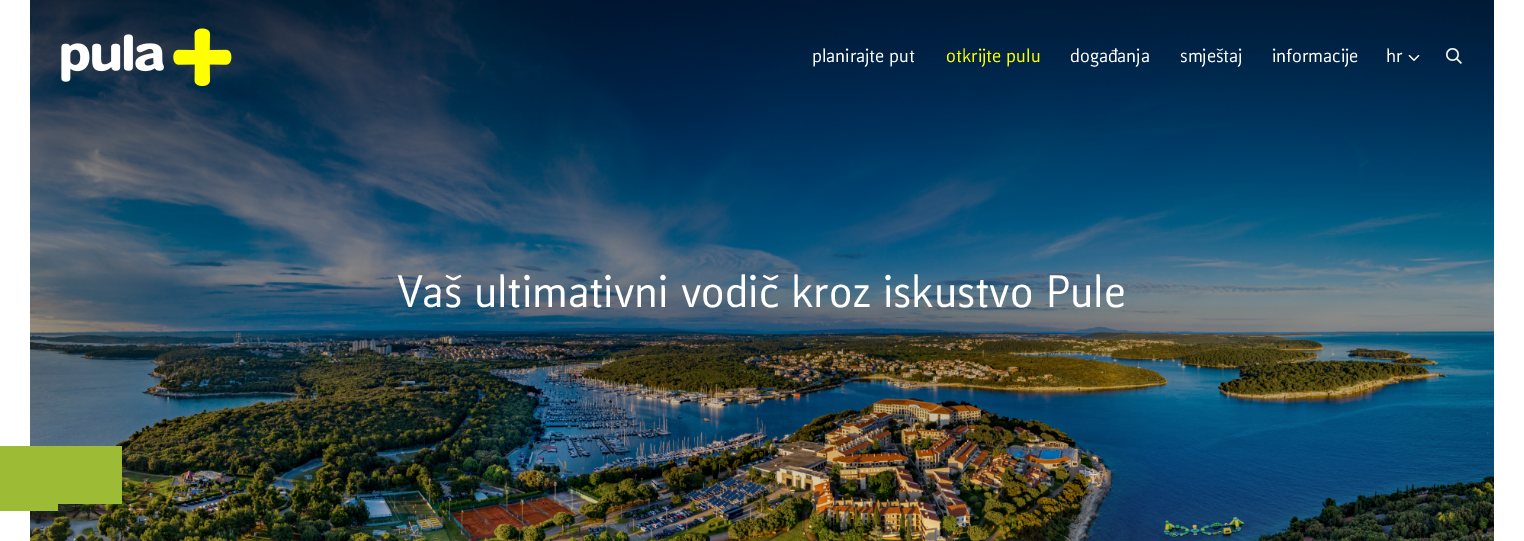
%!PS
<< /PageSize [1524 541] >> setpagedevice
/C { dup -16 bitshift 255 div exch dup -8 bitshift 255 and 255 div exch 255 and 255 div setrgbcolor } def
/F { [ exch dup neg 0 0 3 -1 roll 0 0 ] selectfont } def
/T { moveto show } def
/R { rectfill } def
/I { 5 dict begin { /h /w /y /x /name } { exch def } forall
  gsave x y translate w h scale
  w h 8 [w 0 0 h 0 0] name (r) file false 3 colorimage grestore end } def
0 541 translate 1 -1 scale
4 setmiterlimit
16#FFFFFF C
0 0 1524 541 R
(4.rgb) 30 0 1464 541 I
(1.rgb) 61 28 171 59 I
/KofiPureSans-Medium 18 F
(planirajte put) 812 62 T
16#FFFF00 C
(otkrijte pulu) 946 62 T
16#FFFFFF C
(događanja) 1070 62 T
(smještaj) 1180 62 T
(informacije) 1272 62 T
(hr) 1386 62 T
(2.rgb) 1408 55 12 6 I
(3.rgb) 1446 48 16 16 I
/KofiPureSans-Medium 43 F
(Vaš ultimativni vodič kroz iskustvo Pule) 398 307 T
16#9EBB35 C
0 446 58 65 R
58 446 64 58 R
showpage
